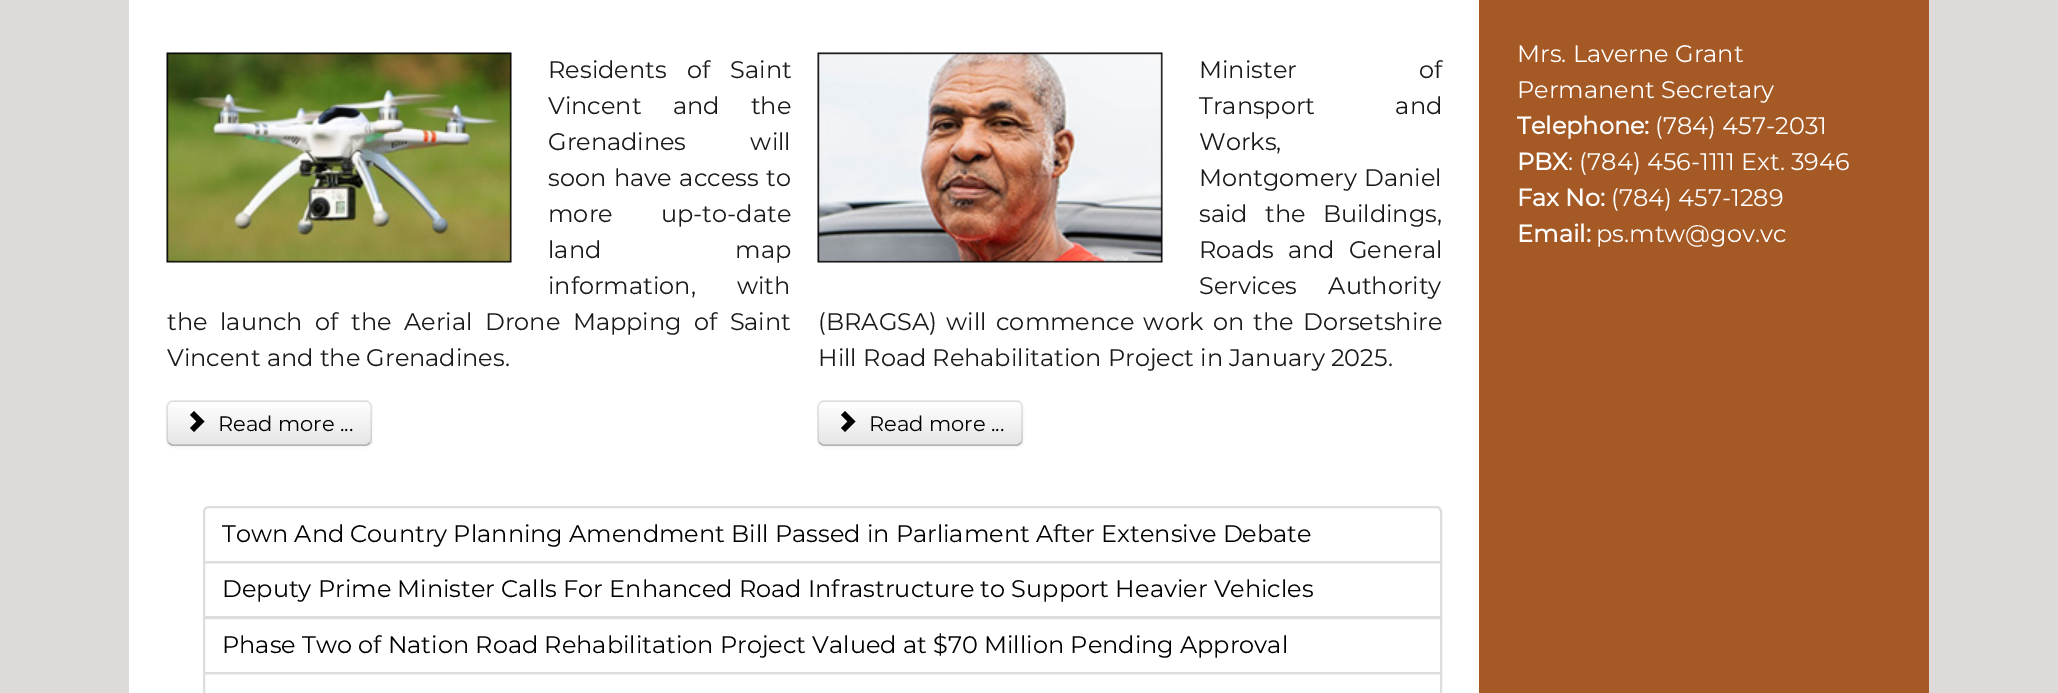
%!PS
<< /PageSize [2058 693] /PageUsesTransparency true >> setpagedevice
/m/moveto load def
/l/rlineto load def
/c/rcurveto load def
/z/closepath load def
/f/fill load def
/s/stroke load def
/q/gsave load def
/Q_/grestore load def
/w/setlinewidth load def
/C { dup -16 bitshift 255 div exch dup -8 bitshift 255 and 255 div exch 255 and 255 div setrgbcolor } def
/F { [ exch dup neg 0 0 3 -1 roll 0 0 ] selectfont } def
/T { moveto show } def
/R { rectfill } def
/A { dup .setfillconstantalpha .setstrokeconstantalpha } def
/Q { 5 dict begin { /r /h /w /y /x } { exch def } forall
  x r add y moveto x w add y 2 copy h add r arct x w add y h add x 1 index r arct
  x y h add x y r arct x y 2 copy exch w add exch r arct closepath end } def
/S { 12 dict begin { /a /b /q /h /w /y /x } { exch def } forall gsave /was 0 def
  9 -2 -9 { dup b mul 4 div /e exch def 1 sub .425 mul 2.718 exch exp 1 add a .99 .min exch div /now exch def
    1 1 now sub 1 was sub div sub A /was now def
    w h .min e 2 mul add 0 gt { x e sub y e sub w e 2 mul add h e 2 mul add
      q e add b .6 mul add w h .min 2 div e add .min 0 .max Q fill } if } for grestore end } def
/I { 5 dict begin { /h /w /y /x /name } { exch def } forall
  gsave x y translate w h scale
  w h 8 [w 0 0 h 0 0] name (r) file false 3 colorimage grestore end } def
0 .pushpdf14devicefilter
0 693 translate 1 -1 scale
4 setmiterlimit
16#DEDADA C
0 0 2058 693 R
16#FFFFFF C
129 0 1350 693 R
(1.rgb) 166 52 346 211 I
/Montserrat-Thin 24 F
16#1A1A1A C
548 78 m 14 0 32 (Residents of Saint) widthshow
548 114 m 25 0 32 (Vincent and the) widthshow
548 150 m 58 0 32 (Grenadines will) widthshow
548 186 m 1.5 0 32 (soon have access to) widthshow
548 222 m 42 0 32 (more up-to-date) widthshow
548 258 m 128 0 32 (land map) widthshow
548 294 m 35 0 32 (information, with) widthshow
167 330 m 6.25 0 32 (the launch of the Aerial Drone Mapping of Saint) widthshow
(Vincent and the Grenadines.) 167 366 T
16#000000 C
167 402 205 45 6 1.5 .05 S
16#F5F5F5 C
167 401 205 45 6 Q f
q
167 401 205 45 6 Q clip newpath
q 167 402 m 205 0 l 0 42 l -205 0 l z clip newpath
<< /ShadingType 2 /ColorSpace /DeviceRGB /Coords [269 402 269 444] /Extend [true true] /Function << /FunctionType 2 /Domain [0 1] /C0 [1 1 1] /C1 [.902 .902 .902] /N 1 >> >> shfill Q_
Q_
0.2 A
16#FFFFFF C
172 404 m 194 0 l 2 0 4 2 4 4 c 0 34 l 1 -1 1 -2 1 -3 c 0 -32 l 0 -3 -2 -5 -5 -5 c -193 0 l -3 0 -5 2 -5 5 c 0 1 l 0 -2 2 -4 4 -4 c z f
1 A
16#B3B3B3 C
1.5 w
369.5 443 m -1 1 -2 2 -3.5 2 c -193.5 0 l -1.5 0 -2.5 -1 -3.5 -2 c s
0.1 A
16#000000 C
169 443 m -1 -1 -2 -2 -2 -3.5 c 0 -33 l 0 -1.5 1 -2.5 2 -3.5 c 1 -1 2 -2 3.5 -2 c 193.5 0 l 1.5 0 2.5 1 3.5 2 c 1 1 1.5 2 1.5 3.5 c 0 33 l 0 1.5 -.5 2.5 -1.5 3.5 c s
1 A
194 411 m 10.5 10.5 l -10.5 10.5 l -4 -4 l 6.5 -6.5 l -6.5 -6.5 l z f
/Montserrat-Thin 21 F
(Read more ...) 218 431 T
(2.rgb) 817 52 346 211 I
/Montserrat-Thin 24 F
16#1A1A1A C
1199 78 m 116 0 32 (Minister of) widthshow
1199 114 m 74 0 32 (Transport and) widthshow
(Works,) 1199 150 T
1199 186 m 1 0 32 (Montgomery Daniel) widthshow
1199 222 m 11 0 32 (said the Buildings,) widthshow
1199 258 m 8 0 32 (Roads and General) widthshow
1199 294 m 25 0 32 (Services Authority) widthshow
818 330 m 3 0 32 (\(BRAGSA\) will commence work on the Dorsetshire) widthshow
(Hill Road Rehabilitation Project in January 2025.) 818 366 T
16#000000 C
818 402 205 45 6 1.5 .05 S
16#F5F5F5 C
818 401 205 45 6 Q f
q
818 401 205 45 6 Q clip newpath
q 818 402 m 205 0 l 0 42 l -205 0 l z clip newpath
<< /ShadingType 2 /ColorSpace /DeviceRGB /Coords [920 402 920 444] /Extend [true true] /Function << /FunctionType 2 /Domain [0 1] /C0 [1 1 1] /C1 [.902 .902 .902] /N 1 >> >> shfill Q_
Q_
16#B3B3B3 C
1020.5 443 m -1 1 -2 2 -3.5 2 c -193.5 0 l -1.5 0 -2.5 -1 -3.5 -2 c s
0.1 A
16#000000 C
820 443 m -1 -1 -2 -2 -2 -3.5 c 0 -33 l 0 -1.5 1 -2.5 2 -3.5 c 1 -1 2 -2 3.5 -2 c 193.5 0 l 1.5 0 2.5 1 3.5 2 c 1 1 1.5 2 1.5 3.5 c 0 33 l 0 1.5 -.5 2.5 -1.5 3.5 c s
1 A
845 411 m 10.5 10.5 l -10.5 10.5 l -4 -4 l 6.5 -6.5 l -6.5 -6.5 l z f
/Montserrat-Thin 21 F
(Read more ...) 869 431 T
16#DDDDDD C
2 w
209 507 m 1227 0 l 3 0 5 2 5 5 c 0 50 l -1237 0 l 0 -50 l 0 -3 2 -5 5 -5 c z s
/Montserrat-Thin 24 F
16#000000 C
(Town And Country Planning Amendment Bill Passed in Parliament After Extensive Debate) 222 542 T
16#DDDDDD C
204 562 1237 55 rectstroke
16#000000 C
(Deputy Prime Minister Calls For Enhanced Road Infrastructure to Support Heavier Vehicles) 222 597 T
16#DDDDDD C
204 618 1237 55 rectstroke
16#000000 C
(Phase Two of Nation Road Rehabilitation Project Valued at $70 Million Pending Approval) 222 653 T
16#DDDDDD C
204 673 1237 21 rectstroke
16#A55925 C
1479 0 450 693 R
16#FFFFFF C
(Mrs. Laverne Grant) 1517 62 T
(Permanent Secretary) 1517 98 T
/Montserrat-Bold 24 F
(Telephone:) 1517 134 T
/Montserrat-Thin 24 F
(\(784\) 457-2031) 1655 134 T
/Montserrat-Bold 24 F
(PBX) 1517 170 T
/Montserrat-Thin 24 F
(: \(784\) 456-1111 Ext. 3946) 1568 170 T
/Montserrat-Bold 24 F
(Fax No:) 1517 206 T
/Montserrat-Thin 24 F
(\(784\) 457-1289) 1611 206 T
/Montserrat-Bold 24 F
(Email:) 1517 242 T
/Montserrat-Thin 24 F
(ps.mtw@gov.vc) 1596 242 T
.poppdf14devicefilter showpage
